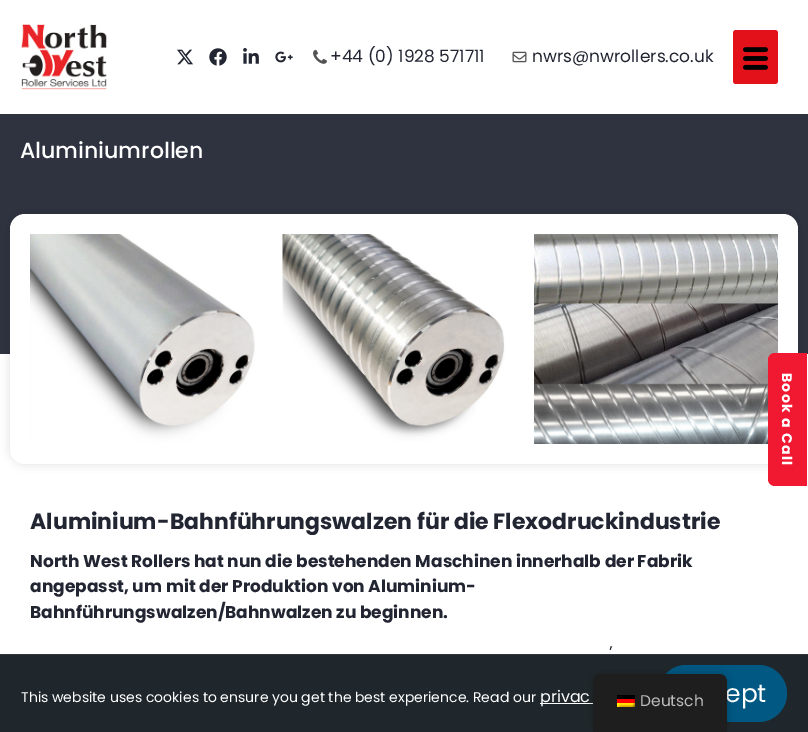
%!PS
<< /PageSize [808 732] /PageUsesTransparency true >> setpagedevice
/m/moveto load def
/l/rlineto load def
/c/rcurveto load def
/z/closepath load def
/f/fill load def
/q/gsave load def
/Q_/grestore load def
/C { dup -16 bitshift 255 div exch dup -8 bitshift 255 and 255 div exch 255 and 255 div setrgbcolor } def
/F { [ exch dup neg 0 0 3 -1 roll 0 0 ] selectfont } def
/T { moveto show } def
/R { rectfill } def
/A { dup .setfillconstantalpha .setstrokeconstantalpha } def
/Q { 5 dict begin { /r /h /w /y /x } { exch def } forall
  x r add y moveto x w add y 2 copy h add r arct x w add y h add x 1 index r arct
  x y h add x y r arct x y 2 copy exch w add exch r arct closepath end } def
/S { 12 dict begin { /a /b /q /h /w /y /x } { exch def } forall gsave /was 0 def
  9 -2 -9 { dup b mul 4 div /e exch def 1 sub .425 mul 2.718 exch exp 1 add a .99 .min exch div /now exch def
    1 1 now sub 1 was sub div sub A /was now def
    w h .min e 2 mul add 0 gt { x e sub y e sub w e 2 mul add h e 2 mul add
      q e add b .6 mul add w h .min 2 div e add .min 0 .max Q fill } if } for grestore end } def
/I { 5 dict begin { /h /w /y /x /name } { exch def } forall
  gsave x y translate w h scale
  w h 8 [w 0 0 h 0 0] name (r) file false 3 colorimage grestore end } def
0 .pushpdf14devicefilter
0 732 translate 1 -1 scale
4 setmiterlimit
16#FFFFFF C
0 0 808 732 R
(1.rgb) 21 24 86 66 I
(2.rgb) 177 49 16 16 I
(3.rgb) 209 48 18 18 I
(4.rgb) 243 48 16 16 I
(5.rgb) 275 51 18 12 I
(6.rgb) 313 49 14 15 I
/Poppins-Regular 17 F
16#222532 C
(+44 \(0\) 1928 571711) 330 62 T
(7.rgb) 512 51 15 12 I
(nwrs@nwrollers.co.uk) 532 62 T
16#E31119 C
733 30 45 54 3 Q f
(8.rgb) 743 47 25 23 I
16#2F3340 C
0 114 808 240 R
/Poppins-Medium 22 F
16#FFFFFF C
(Aluminiumrollen) 20 158 T
16#000000 C
10 214 788 250 15 5 .14 S
16#FFFFFF C
10 214 788 250 15 Q f
(9.rgb) 30 234 748 210 I
/Poppins-Bold 22 F
16#222532 C
(Aluminium-Bahnführungswalzen für die Flexodruckindustrie) 30 529 T
/Poppins-Bold 17 F
(North West Rollers hat nun die bestehenden Maschinen innerhalb der Fabrik) 30 567 T
(angepasst, um mit der Produktion von Aluminium-) 30 592 T
(Bahnführungswalzen/Bahnwalzen zu beginnen.) 30 618 T
/Poppins-Regular 17 F
(’) 609 658 T
16#F11931 C
807 353 m 0 133 l -32 0 l -4 0 -7 -3 -7 -7 c 0 -119 l 0 -4 3 -7 7 -7 c z f
/Poppins-Bold 14 F
16#FFFFFF C
q 782 373 translate 90 rotate 0 0 m 1.25 0 (Book a Call) ashow Q_
16#20272C C
0 655 808 77 R
16#32393D C
0 654 808 1 R
/Poppins-Regular 14 F
16#FFFFFF C
(This website uses cookies to ensure you get the best experience. Read our) 21 702 T
540 703 53 1 R
/Poppins-Regular 16 F
(privac) 540 702 T
16#005883 C
658 665 129 57 28.5 Q f
/Poppins-Regular 25 F
16#FFFFFF C
(ept) 725 702 T
16#000000 C
593 674 134 58 8 4 .25 S
16#1E1E1E C
601 674 m 118 0 l 4.5 0 8 3.5 8 8 c 0 50 l -134 0 l 0 -50 l 0 -4.5 3.5 -8 8 -8 c z f
(10.rgb) 617 695 18 12 I
/Poppins-Regular 15.5 F
16#BDBDBD C
(Deutsch) 640 706 T
.poppdf14devicefilter showpage
